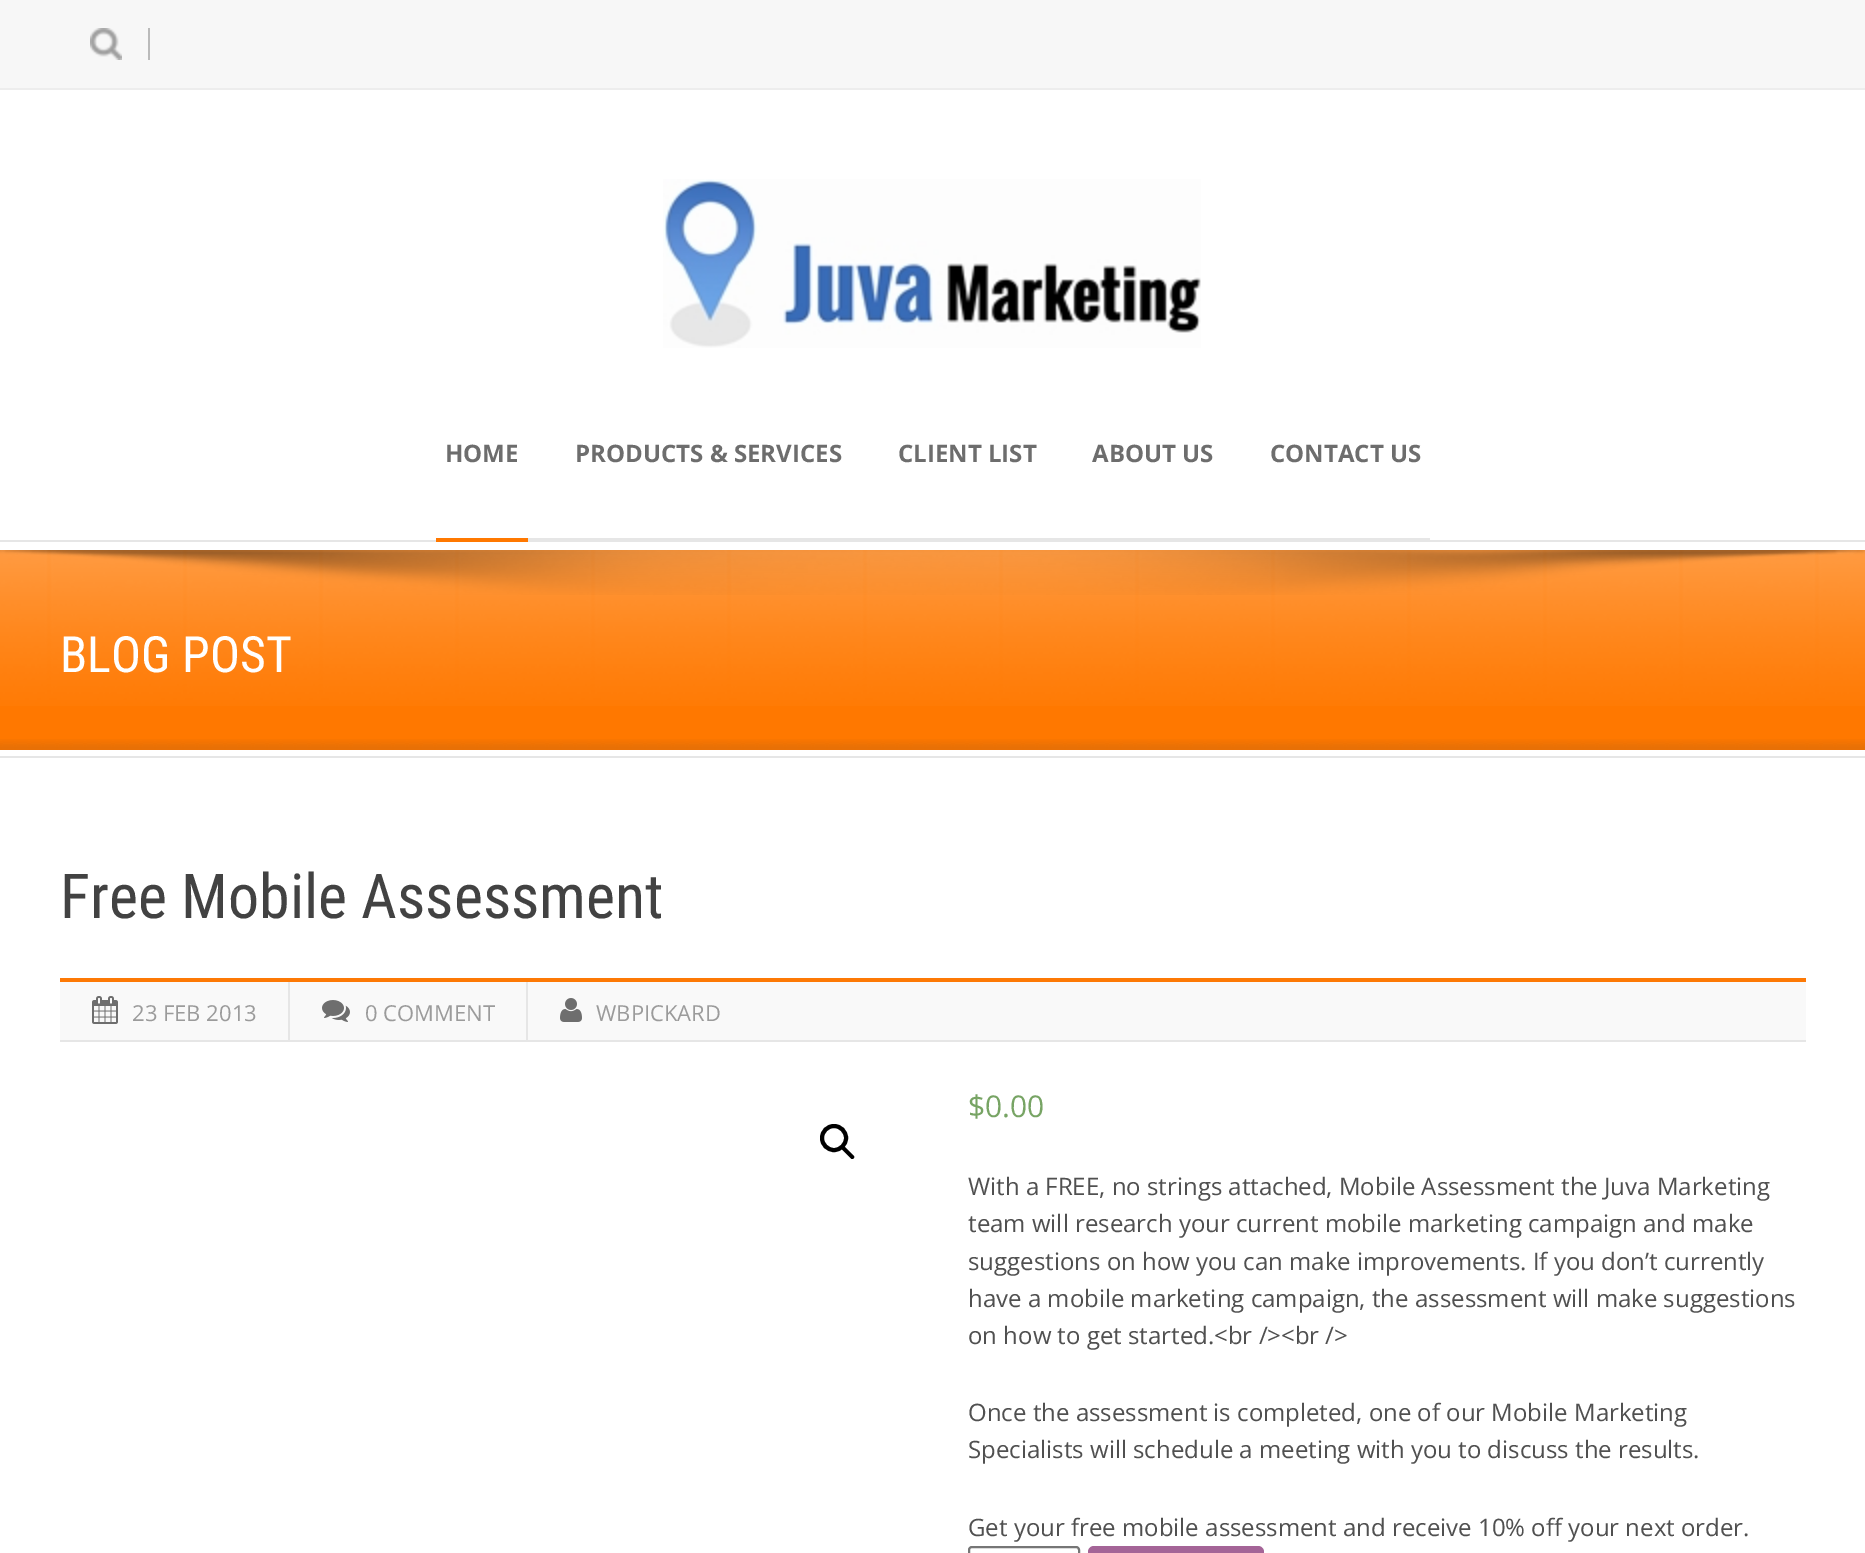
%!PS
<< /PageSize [1865 1553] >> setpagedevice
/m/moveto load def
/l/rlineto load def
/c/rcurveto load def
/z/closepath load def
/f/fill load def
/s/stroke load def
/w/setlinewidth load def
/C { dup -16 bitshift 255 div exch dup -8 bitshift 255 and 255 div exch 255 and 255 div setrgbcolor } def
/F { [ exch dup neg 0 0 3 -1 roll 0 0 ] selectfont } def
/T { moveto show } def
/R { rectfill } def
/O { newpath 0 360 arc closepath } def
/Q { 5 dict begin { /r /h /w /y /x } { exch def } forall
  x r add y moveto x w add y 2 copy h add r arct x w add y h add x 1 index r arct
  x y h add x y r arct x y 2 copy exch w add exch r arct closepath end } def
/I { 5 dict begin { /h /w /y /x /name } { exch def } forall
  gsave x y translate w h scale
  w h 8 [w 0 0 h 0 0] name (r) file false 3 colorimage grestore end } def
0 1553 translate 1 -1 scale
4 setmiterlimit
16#FFFFFF C
0 0 1865 1553 R
16#F7F7F7 C
0 0 1865 88 R
16#EDEDED C
0 88 1865 2 R
(1.rgb) 90 28 32 32 I
16#BABABA C
148 28 2 32 R
(2.rgb) 663 179 538 169 I
16#E6E6E6 C
528 538 902 2 R
/OpenSans-Bold 24 F
16#6D6D6D C
(HOME) 445 462 T
(PRODUCTS & SERVICES) 575 462 T
(CLIENT LIST) 898 462 T
(ABOUT US) 1092 462 T
(CONTACT US) 1270 462 T
16#E6E6E6 C
0 540 1865 2 R
16#FF7800 C
436 538 92 4 R
16#E6E6E6 C
0 756 1865 2 R
16#FF7800 C
0 550 1865 200 R
(3.rgb) 0 550 1865 156 I
(4.rgb) 0 550 1865 45 I
/RobotoCondensed-Regular 50 F
16#FFFFFF C
(BLOG POST) 60 672 T
(5.rgb) 0 739 1865 11 I
/RobotoCondensed-Regular 62 F
16#424242 C
(Free Mobile Assessment) 60 918 T
16#F9F9F9 C
60 982 1746 58 R
16#FD7905 C
60 978 1746 4 R
16#E6E6E6 C
60 1040 1746 2 R
(6.rgb) 92 996 26 28 I
/OpenSans-Regular 22 F
16#9B9B9B C
(23 FEB 2013) 132 1021 T
16#E6E6E6 C
288 982 2 58 R
(7.rgb) 322 1000 28 22 I
16#9B9B9B C
(0 COMMENT) 365 1021 T
16#E6E6E6 C
526 982 2 58 R
(8.rgb) 560 998 22 24 I
16#9B9B9B C
(WBPICKARD) 596 1021 T
16#000000 C
4 w
834 1138 12 O s
842.5 1147 m .5 -1 2 -1 2.5 0 c 8.5 8.5 l 1 1 1 2 0 3 c -.5 .5 -2 .5 -2.5 0 c -8.5 -8.5 l -1 -1 -1 -2 0 -3 c z f
/OpenSans-Regular 30 F
16#77A464 C
($0.00) 968 1117 T
/OpenSans-Regular 24 F
16#505050 C
(With a FREE, no strings attached, Mobile Assessment the Juva Marketing) 968 1195 T
(team will research your current mobile marketing campaign and make) 968 1232 T
(suggestions on how you can make improvements. If you don’t currently) 968 1270 T
(have a mobile marketing campaign, the assessment will make suggestions) 968 1307 T
(on how to get started.<br /><br />) 968 1344 T
(Once the assessment is completed, one of our Mobile Marketing) 968 1421 T
(Specialists will schedule a meeting with you to discuss the results.) 968 1458 T
(Get your free mobile assessment and receive 10% off your next order.) 968 1536 T
16#767676 C
2 w
969 1547 110 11 3 Q s
16#A46497 C
1088 1546 176 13 6 Q f
showpage
